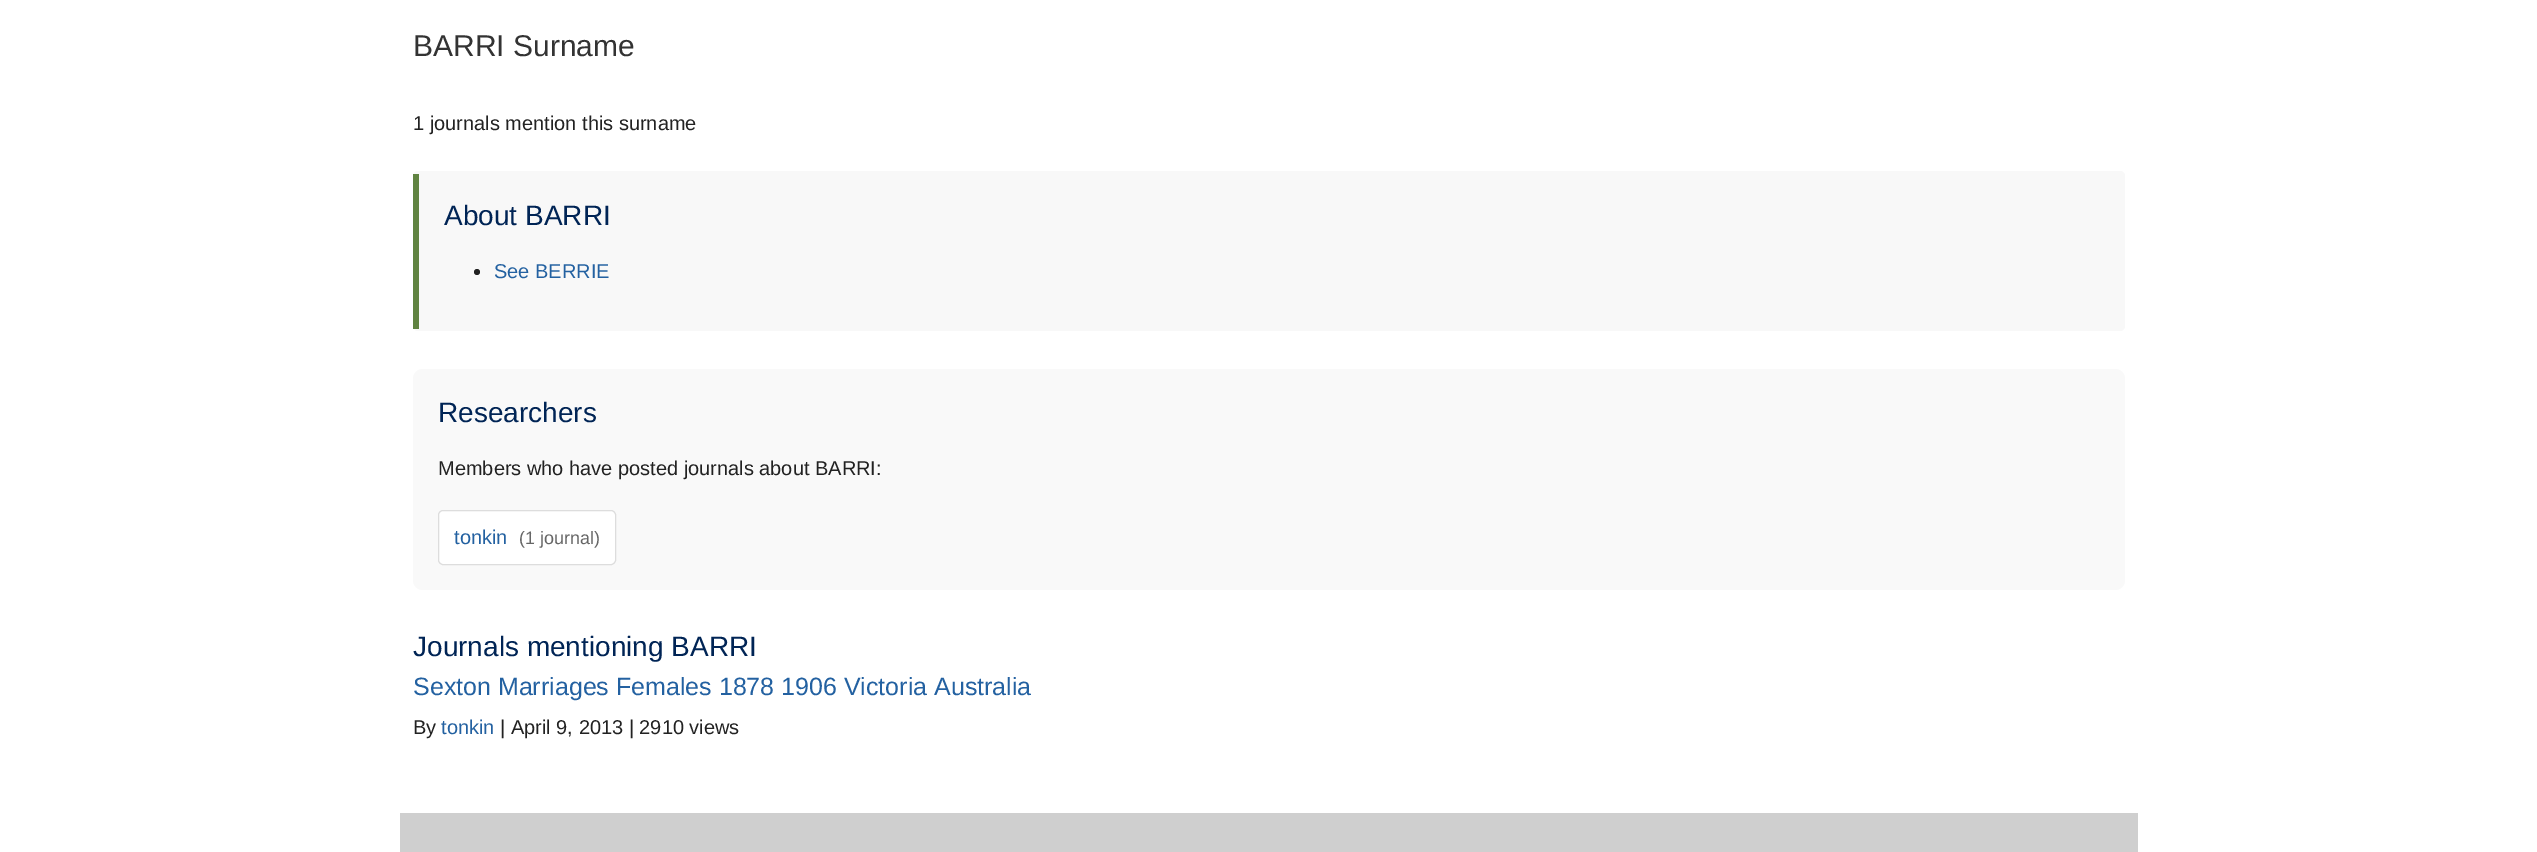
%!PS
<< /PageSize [2537 852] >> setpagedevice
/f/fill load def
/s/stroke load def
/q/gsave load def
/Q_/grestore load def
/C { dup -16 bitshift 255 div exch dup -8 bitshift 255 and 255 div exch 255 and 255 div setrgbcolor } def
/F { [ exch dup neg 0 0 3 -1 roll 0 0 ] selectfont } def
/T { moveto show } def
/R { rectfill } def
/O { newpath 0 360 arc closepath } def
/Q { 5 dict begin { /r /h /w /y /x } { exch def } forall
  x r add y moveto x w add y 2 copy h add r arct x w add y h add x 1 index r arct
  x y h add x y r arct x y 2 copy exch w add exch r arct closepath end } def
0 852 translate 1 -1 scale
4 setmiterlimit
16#FFFFFF C
0 0 2537 852 R
/LiberationSans-Regular 30 F
16#333333 C
(BARRI Surname) 413 56 T
/LiberationSans-Regular 20 F
16#222222 C
(1 journals mention this surname) 413 130 T
16#F8F8F8 C
413 171 1712 160 5 Q f
16#608341 C
413 174 6 155 R
/LiberationSans-Regular 28 F
16#002455 C
(About BARRI) 444 225 T
16#222222 C
477 272 3 O f
/LiberationSans-Regular 20 F
16#2361A1 C
(See BERRIE) 494 278 T
16#F9F9F9 C
413 369 1712 221 10 Q f
/LiberationSans-Regular 28 F
16#002455 C
(Researchers) 438 422 T
/LiberationSans-Regular 20 F
16#222222 C
(Members who have posted journals about BARRI:) 438 475 T
16#FFFFFF C
438.5 510.5 177 54 4.5 Q q f Q_
16#DDDDDD C
s
16#2361A1 C
(tonkin) 454 544 T
/LiberationSans-Regular 18 F
16#666666 C
(\(1 journal\)) 519 544 T
/LiberationSans-Regular 28 F
16#002455 C
(Journals mentioning BARRI) 413 656 T
/LiberationSans-Regular 25 F
16#2361A1 C
(Sexton Marriages Females 1878 1906 Victoria Australia) 413 695 T
/LiberationSans-Regular 20 F
16#222222 C
(By) 413 734 T
16#2361A1 C
(tonkin) 441 734 T
16#222222 C
(| April 9, 2013 | 2910 views) 500 734 T
16#CFCFCF C
400 813 1738 39 R
showpage
